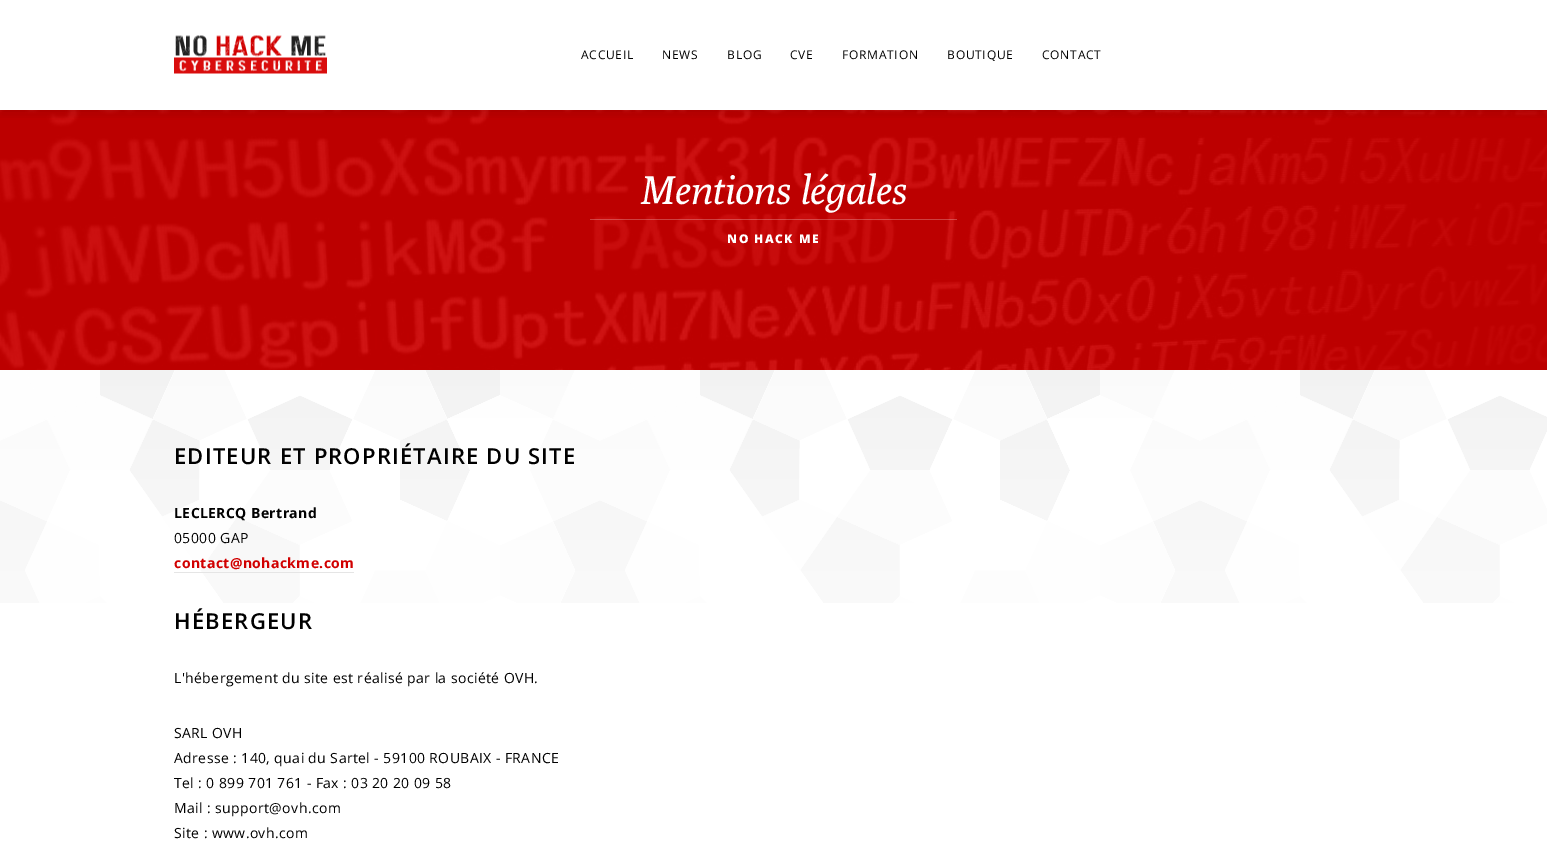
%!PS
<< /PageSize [1547 846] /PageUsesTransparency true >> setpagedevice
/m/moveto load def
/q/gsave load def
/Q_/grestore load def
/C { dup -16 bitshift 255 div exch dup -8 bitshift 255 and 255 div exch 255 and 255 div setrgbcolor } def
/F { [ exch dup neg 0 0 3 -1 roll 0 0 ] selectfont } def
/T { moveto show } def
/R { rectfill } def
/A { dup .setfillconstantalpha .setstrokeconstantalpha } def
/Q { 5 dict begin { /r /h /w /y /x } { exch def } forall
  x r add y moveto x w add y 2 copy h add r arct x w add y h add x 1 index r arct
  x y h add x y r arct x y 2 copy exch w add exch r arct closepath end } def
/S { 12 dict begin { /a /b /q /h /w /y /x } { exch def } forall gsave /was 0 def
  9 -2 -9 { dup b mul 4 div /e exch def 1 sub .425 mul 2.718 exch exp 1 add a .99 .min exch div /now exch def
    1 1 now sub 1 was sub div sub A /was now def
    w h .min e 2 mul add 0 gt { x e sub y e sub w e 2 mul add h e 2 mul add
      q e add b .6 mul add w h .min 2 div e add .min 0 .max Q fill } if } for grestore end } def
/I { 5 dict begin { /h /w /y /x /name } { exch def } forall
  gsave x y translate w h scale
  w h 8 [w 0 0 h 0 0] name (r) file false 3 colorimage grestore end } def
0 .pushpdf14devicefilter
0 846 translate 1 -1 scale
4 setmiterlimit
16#FFFFFF C
0 0 1547 846 R
(2.rgb) 0 110 1547 260 I
q
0 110 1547 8 rectclip
16#000000 C
0 0 1547 110 0 7.5 .15 S
Q_
(1.rgb) 174 35 153 39 I
/OpenSans-Regular 12 F
16#000000 C
581 59 m .75 0 (ACCUEIL) ashow
662 59 m .75 0 (NEWS) ashow
727 59 m .75 0 (BLOG) ashow
790 59 m .75 0 (CVE) ashow
842 59 m .75 0 (FORMATION) ashow
947 59 m .75 0 (BOUTIQUE) ashow
1042 59 m .75 0 (CONTACT) ashow
/Poly-Italic 40 F
16#FFFFFF C
(Mentions légales) 640 204 T
0.25 A
590 219 367 1 R
/OpenSans-ExtraBold 12 F
1 A
727 243 m 1.5 0 (NO HACK ME) ashow
(3.rgb) 0 370 1547 233 I
/OpenSans-SemiBold 22 F
16#000000 C
174 464 m 1.2 0 (EDITEUR ET PROPRIÉTAIRE DU SITE) ashow
/OpenSans-Bold 14 F
174 518 m .4 0 (LECLERCQ Bertrand) ashow
/OpenSans-Regular 14 F
174 543 m .4 0 (05000 GAP) ashow
/OpenSans-Bold 14 F
16#D10000 C
174 568 m .4 0 (contact@nohackme.com) ashow
16#E5E5E5 C
174 572 180 1 R
/OpenSans-SemiBold 22 F
16#000000 C
174 629 m 1.2 0 (HÉBERGEUR) ashow
/OpenSans-Regular 14 F
174 683 m .4 0 (L'hébergement du site est réalisé par la société OVH.) ashow
174 738 m .4 0 (SARL OVH) ashow
174 763 m .4 0 (Adresse : 140, quai du Sartel - 59100 ROUBAIX - FRANCE) ashow
174 788 m .4 0 (Tel : 0 899 701 761 - Fax : 03 20 20 09 58) ashow
174 813 m .4 0 (Mail : support@ovh.com) ashow
174 838 m .4 0 (Site : www.ovh.com) ashow
.poppdf14devicefilter showpage
